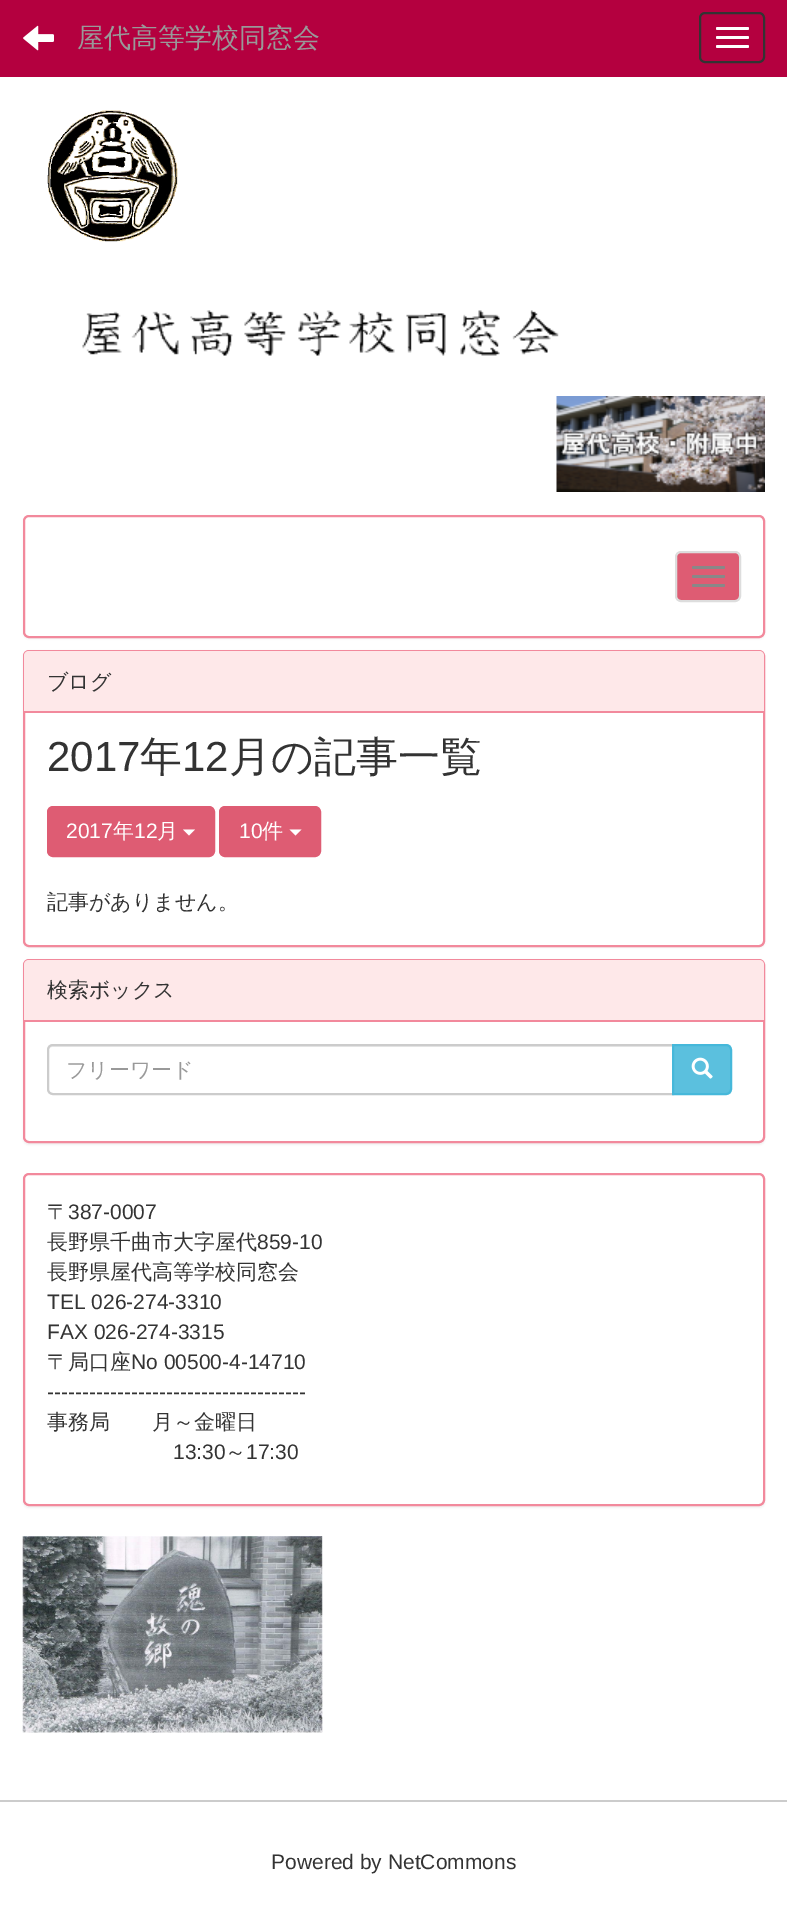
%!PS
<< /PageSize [787 1930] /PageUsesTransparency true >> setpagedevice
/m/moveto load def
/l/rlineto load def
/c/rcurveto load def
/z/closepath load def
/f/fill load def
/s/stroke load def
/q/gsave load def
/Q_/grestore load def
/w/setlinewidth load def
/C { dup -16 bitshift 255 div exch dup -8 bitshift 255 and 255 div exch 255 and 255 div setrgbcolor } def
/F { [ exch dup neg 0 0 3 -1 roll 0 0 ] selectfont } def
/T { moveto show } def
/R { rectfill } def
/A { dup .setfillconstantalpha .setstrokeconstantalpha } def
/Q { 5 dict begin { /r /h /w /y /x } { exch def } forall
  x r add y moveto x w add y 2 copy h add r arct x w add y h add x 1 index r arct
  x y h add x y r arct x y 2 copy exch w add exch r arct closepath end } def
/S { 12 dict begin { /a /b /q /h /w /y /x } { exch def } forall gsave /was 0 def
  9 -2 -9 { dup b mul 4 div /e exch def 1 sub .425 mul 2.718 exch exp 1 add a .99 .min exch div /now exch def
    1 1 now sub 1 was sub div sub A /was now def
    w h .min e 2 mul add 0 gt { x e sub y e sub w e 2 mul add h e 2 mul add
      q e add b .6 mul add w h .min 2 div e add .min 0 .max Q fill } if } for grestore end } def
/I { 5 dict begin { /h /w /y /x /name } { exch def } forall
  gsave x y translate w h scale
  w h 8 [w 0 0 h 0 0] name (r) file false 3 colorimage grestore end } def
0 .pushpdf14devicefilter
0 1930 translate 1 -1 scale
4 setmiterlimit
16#FFFFFF C
0 0 787 1930 R
16#B4003F C
0 0 787 77 R
(1.rgb) 23 25 31 26 I
/WenQuanYiZenHei-Medium 27 F
16#999999 C
(屋代高等学校同窓会) 77 47 T
16#333333 C
2 w
700 13 64 49 5 Q s
16#FFFFFF C
716 27 33 3 1.5 Q f
716 36 33 3 1.5 Q f
716 45 33 3 1.5 Q f
(2.rgb) 47 110 131 132 I
(3.rgb) 82 310 477 46 I
(4.rgb) 556 396 209 96 I
16#000000 C
23 516 742 123 6 1 .05 S
16#FFFFFF C
24 516 740 121 5 Q q f Q_
16#F2899C C
s
16#DE5C73 C
676 552 64 49 5 Q q f Q_
16#DDDDDD C
s
16#888888 C
692 566 33 3 1.5 Q f
692 575 33 3 1.5 Q f
692 584 33 3 1.5 Q f
16#000000 C
23 651 742 297 6 1 .05 S
16#FFFFFF C
24 651 740 295 5 Q q f Q_
16#F2899C C
s
16#FEE8E9 C
29 651 m 730 0 l 3 0 5 2 5 5 c 0 57 l -740 0 l 0 -57 l 0 -3 2 -5 5 -5 c z f
16#F2899C C
24 711 740 2 R
/WenQuanYiZenHei-Medium 21 F
16#333333 C
(ブログ) 47 689 T
/LiberationSans-Regular 42 F
(2017) 47 771 T
/WenQuanYiZenHei-Medium 42 F
(年) 140 771 T
/LiberationSans-Regular 42 F
(12) 182 771 T
/WenQuanYiZenHei-Medium 42 F
(月の記事一覧) 229 771 T
16#DE5C73 C
48 807 166 49 5 Q q f Q_
s
/LiberationSans-Regular 21 F
16#FFFFFF C
(2017) 66 838 T
/WenQuanYiZenHei-Medium 21 F
(年) 113 838 T
/LiberationSans-Regular 21 F
(12) 134 838 T
/WenQuanYiZenHei-Medium 21 F
(月) 157 838 T
183 829.5 m 12 0 l -6 6 l z f
16#DE5C73 C
220 807 100 49 5 Q q f Q_
s
/LiberationSans-Regular 21 F
16#FFFFFF C
(10) 239 838 T
/WenQuanYiZenHei-Medium 21 F
(件) 262 838 T
289.5 829.5 m 12 0 l -6 6 l z f
16#333333 C
(記事がありません。) 47 909 T
16#000000 C
23 960 742 185 6 1 .05 S
16#FFFFFF C
24 960 740 182 5 Q q f Q_
16#F2899C C
s
16#FEE8E9 C
29 960 m 730 0 l 3 0 5 2 5 5 c 0 57 l -740 0 l 0 -57 l 0 -3 2 -5 5 -5 c z f
16#F2899C C
24 1020 740 2 R
16#333333 C
(検索ボックス) 47 997 T
16#ECECEC C
52 1047 m 620 0 l 0 -1 l -619 0 l -3 0 -5 3 -5 6 c 0 -3 2 -5 4 -5 c z f
16#CCCCCC C
53 1045 m 620 0 l 0 49 l -620 0 l -3 0 -5 -2 -5 -5 c 0 -39 l 0 -3 2 -5 5 -5 c z s
16#999999 C
(フリーワード) 66 1077 T
16#5BC0DE C
673 1045 m 53 0 l 3 0 5 2 5 5 c 0 39 l 0 3 -2 5 -5 5 c -53 0 l z q f Q_
16#46B8DA C
s
(5.rgb) 691 1057 22 22 I
16#000000 C
23 1175 742 333 6 1 .05 S
16#FFFFFF C
24 1174 740 331 5 Q q f Q_
16#F2899C C
s
16#333333 C
(〒) 47 1219 T
/LiberationSans-Regular 21 F
(387-0007) 68 1219 T
/WenQuanYiZenHei-Medium 21 F
(長野県千曲市大字屋代) 47 1249 T
/LiberationSans-Regular 21 F
(859-10) 257 1249 T
/WenQuanYiZenHei-Medium 21 F
(長野県屋代高等学校同窓会) 47 1279 T
/LiberationSans-Regular 21 F
(TEL 026-274-3310) 47 1309 T
(FAX 026-274-3315) 47 1339 T
/WenQuanYiZenHei-Medium 21 F
(〒局口座) 47 1369 T
/LiberationSans-Regular 21 F
(No 00500-4-14710) 131 1369 T
(-------------------------------------) 47 1399 T
/WenQuanYiZenHei-Medium 21 F
(事務局　　月～金曜日) 47 1429 T
/LiberationSans-Regular 21 F
(13:30) 173 1459 T
/WenQuanYiZenHei-Medium 21 F
(～) 225 1459 T
/LiberationSans-Regular 21 F
(17:30) 246 1459 T
(6.rgb) 22 1536 301 197 I
16#CCCCCC C
0 1800 787 2 R
16#333333 C
(Powered by NetCommons) 271 1869 T
.poppdf14devicefilter showpage
